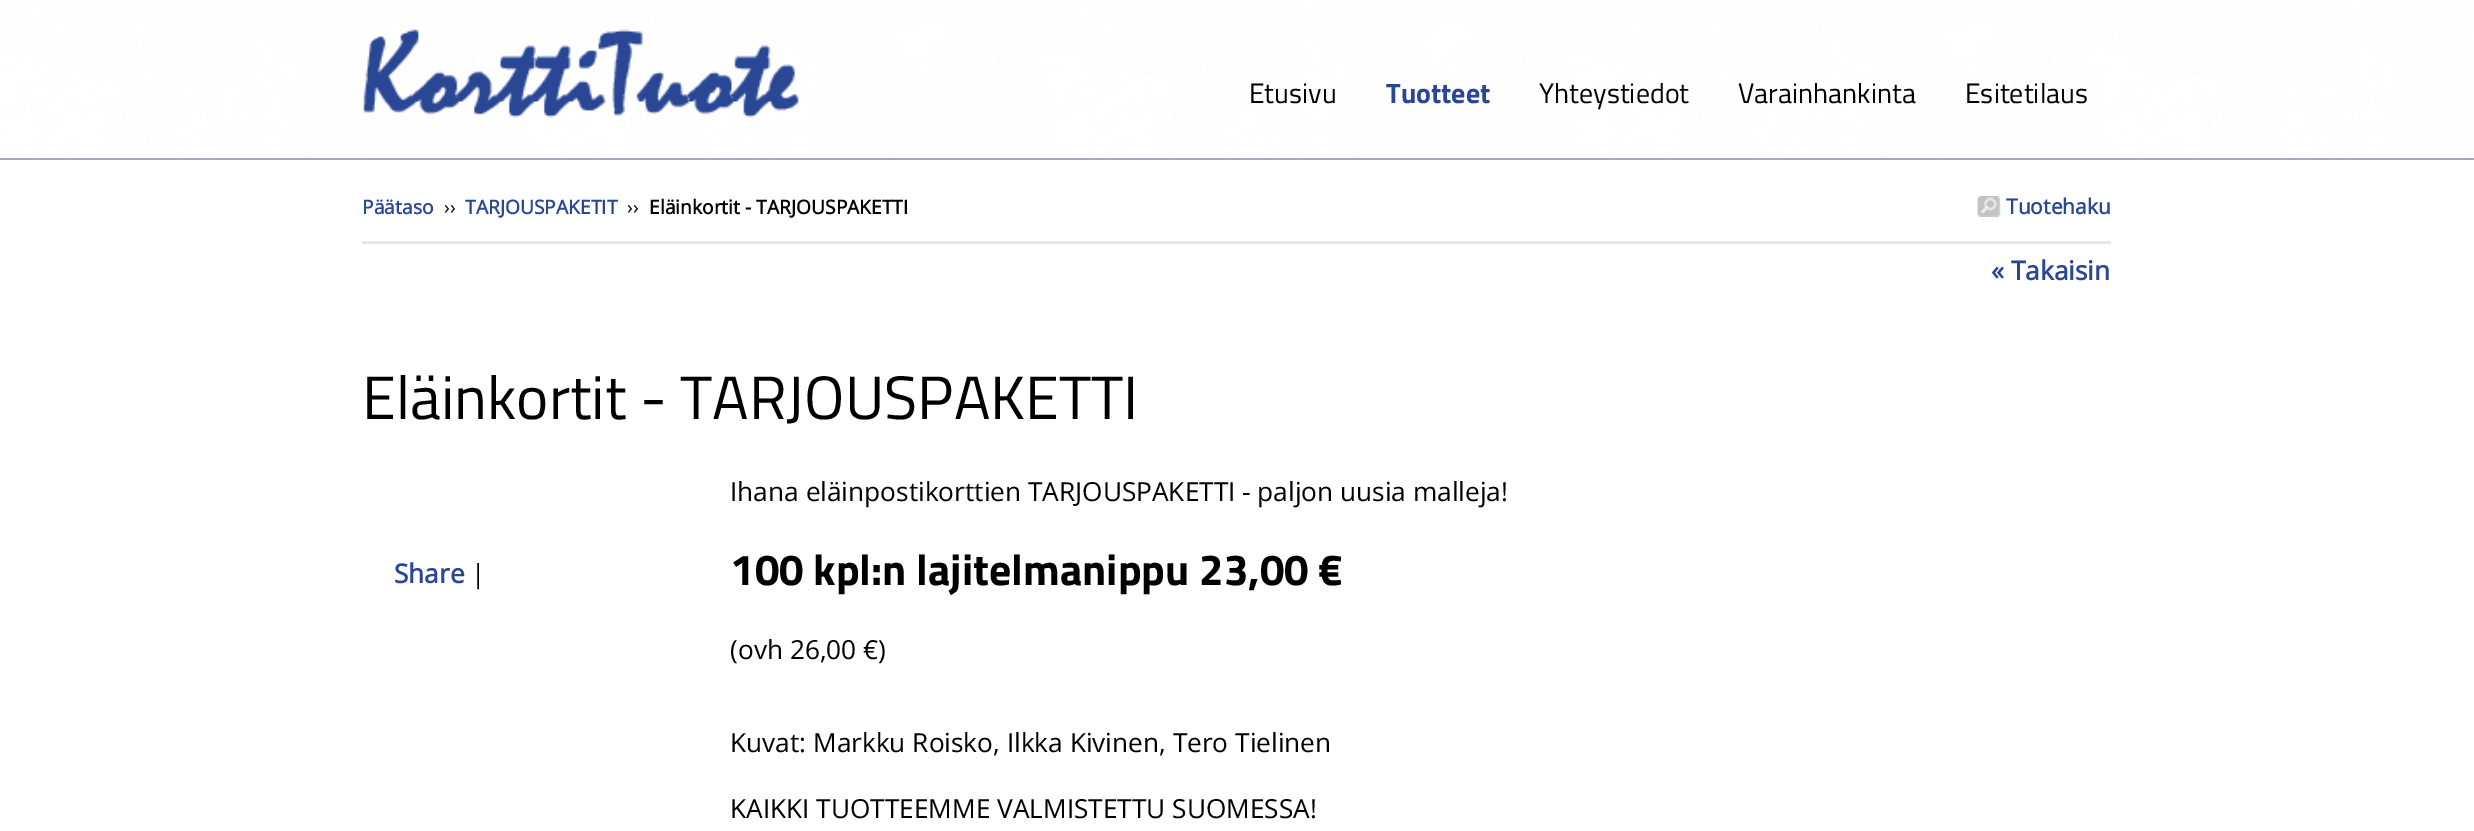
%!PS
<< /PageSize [2474 831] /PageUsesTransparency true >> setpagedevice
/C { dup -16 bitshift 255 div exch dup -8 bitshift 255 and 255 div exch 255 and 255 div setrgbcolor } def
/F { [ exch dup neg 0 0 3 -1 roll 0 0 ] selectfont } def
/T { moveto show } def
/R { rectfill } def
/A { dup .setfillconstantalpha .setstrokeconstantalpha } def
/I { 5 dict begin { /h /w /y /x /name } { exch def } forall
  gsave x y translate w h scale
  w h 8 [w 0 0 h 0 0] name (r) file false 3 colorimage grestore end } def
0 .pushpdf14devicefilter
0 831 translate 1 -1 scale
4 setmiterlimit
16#FFFFFF C
0 0 2474 831 R
(1.rgb) 0 0 2474 159 I
0.9 A
0 0 2474 159 R
0.43 A
16#223A7D C
0 158 2474 2 R
1 A
(2.rgb) 363 29 436 89 I
/TitilliumWeb-Regular 28 F
16#000000 C
(Etusivu) 1249 103 T
/TitilliumWeb-Bold 28 F
16#2A4795 C
(Tuotteet) 1386 103 T
/TitilliumWeb-Regular 28 F
16#000000 C
(Yhteystiedot) 1539 103 T
(Varainhankinta) 1738 103 T
(Esitetilaus) 1965 103 T
/OpenSans-Bold 19.25 F
16#2A4795 C
(Päätaso) 362 214 T
/OpenSans-Regular 19.25 F
16#000000 C
(››) 444 214 T
/OpenSans-Bold 19.25 F
16#2A4795 C
(TARJOUSPAKETIT) 465 214 T
/OpenSans-Regular 19.25 F
16#000000 C
(››) 627 214 T
/OpenSans-Bold 19.25 F
(Eläinkortit - TARJOUSPAKETTI) 649 214 T
(3.rgb) 1977 196 24 21 I
/OpenSans-Bold 21 F
16#2A4795 C
(Tuotehaku) 2006 214 T
16#E6E6E6 C
362 241 1749 3 R
/OpenSans-Bold 26.25 F
16#2A4795 C
(« Takaisin) 1991 280 T
/TitilliumWeb-Regular 61.25 F
16#000000 C
(Eläinkortit - TARJOUSPAKETTI) 362 419 T
/OpenSans-Bold 26.25 F
16#2A4795 C
(Share) 394 583 T
/OpenSans-Regular 26.25 F
16#000000 C
(|) 471 583 T
(Ihana eläinpostikorttien TARJOUSPAKETTI - paljon uusia malleja!) 730 501 T
/TitilliumWeb-Bold 43.75 F
(100 kpl:n lajitelmanippu 23,00 €) 730 585 T
/OpenSans-Regular 26.25 F
(\(ovh 26,00 €\)) 730 659 T
(Kuvat: Markku Roisko, Ilkka Kivinen, Tero Tielinen) 730 752 T
(KAIKKI TUOTTEEMME VALMISTETTU SUOMESSA!) 730 818 T
.poppdf14devicefilter showpage
